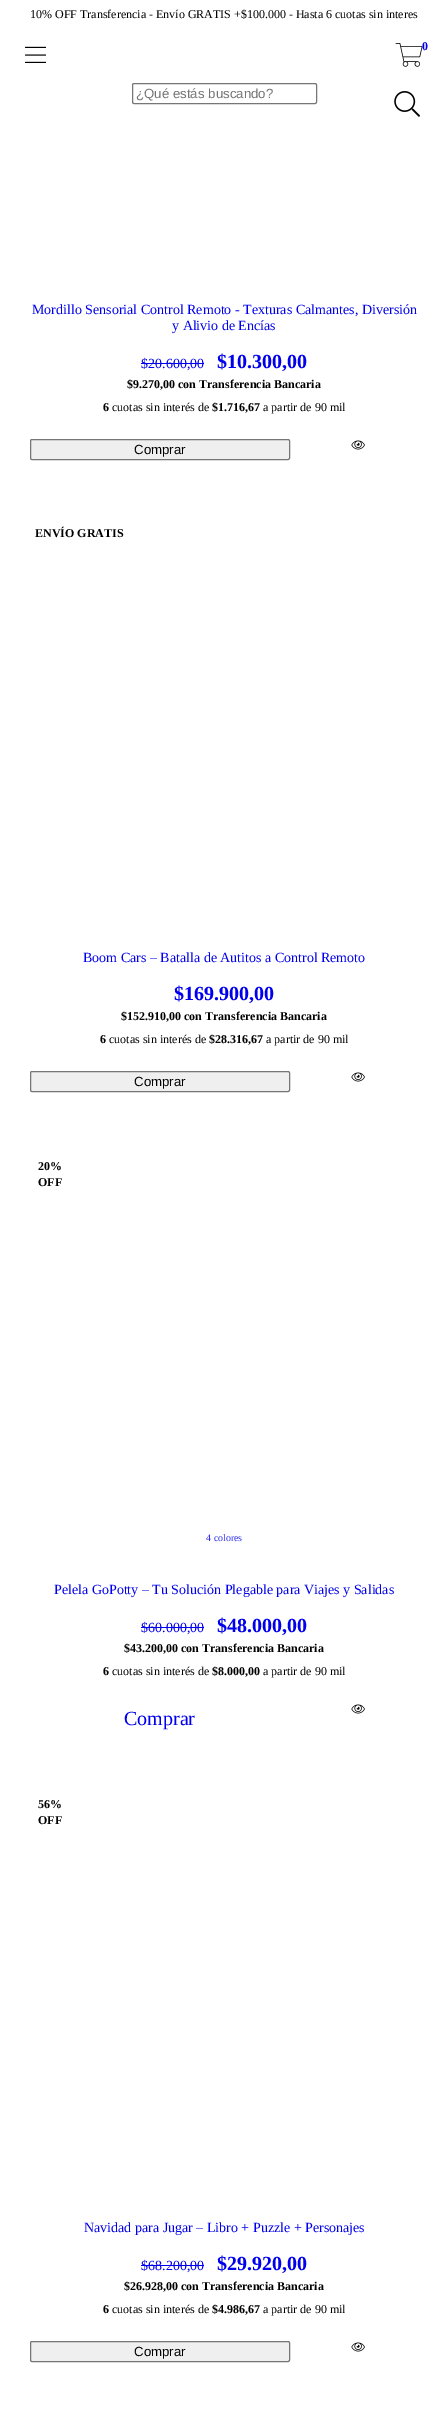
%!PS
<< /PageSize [448 2410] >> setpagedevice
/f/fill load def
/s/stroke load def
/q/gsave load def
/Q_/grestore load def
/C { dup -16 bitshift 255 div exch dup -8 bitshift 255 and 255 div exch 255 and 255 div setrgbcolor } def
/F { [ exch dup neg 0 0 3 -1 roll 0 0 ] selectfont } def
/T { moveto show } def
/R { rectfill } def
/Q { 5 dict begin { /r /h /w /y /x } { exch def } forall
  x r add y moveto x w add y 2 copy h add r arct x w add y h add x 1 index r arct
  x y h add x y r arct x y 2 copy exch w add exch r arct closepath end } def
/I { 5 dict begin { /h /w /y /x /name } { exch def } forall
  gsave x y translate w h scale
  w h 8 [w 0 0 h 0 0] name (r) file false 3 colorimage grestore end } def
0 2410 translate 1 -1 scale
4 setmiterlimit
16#FFFFFF C
0 0 448 2410 R
/LiberationSerif-Regular 12 F
16#000000 C
(10% OFF Transferencia - Envío GRATIS +$100.000 - Hasta 6 cuotas sin interes) 30 18 T
(1.rgb) 25 46 21 17 I
(2.rgb) 395 43 28 24 I
/LiberationSerif-Bold 12 F
16#0000EE C
(0) 422 50 T
16#767676 C
132.5 83.5 184 20 1.5 Q s
/LiberationSans-Regular 13.25 F
16#757575 C
(¿Qué estás buscando?) 136 98 T
(3.rgb) 394 91 26 26 I
/LiberationSerif-Regular 14 F
16#0000EE C
(Mordillo Sensorial Control Remoto - Texturas Calmantes, Diversión) 32 314 T
(y Alivio de Encías) 172 330 T
($20.600,00) 141 368 T
141 363 63 1 R
/LiberationSerif-Bold 20 F
($10.300,00) 217 368 T
/LiberationSerif-Bold 12 F
16#000000 C
($9.270,00 con Transferencia Bancaria) 127 388 T
(6) 103 411 T
/LiberationSerif-Regular 12 F
(cuotas sin interés de) 112 411 T
/LiberationSerif-Bold 12 F
($1.716,67) 212 411 T
/LiberationSerif-Regular 12 F
(a partir de 90 mil) 263 411 T
16#EFEFEF C
30.5 439.5 259 20 1.5 Q q f Q_
16#767676 C
s
/LiberationSans-Regular 13.25 F
16#000000 C
(Comprar) 134 454 T
(4.rgb) 351 440 14 10 I
/LiberationSerif-Bold 12 F
(ENVÍO GRATIS) 35 537 T
/LiberationSerif-Regular 14 F
16#0000EE C
(Boom Cars – Batalla de Autitos a Control Remoto) 83 962 T
/LiberationSerif-Bold 20 F
($169.900,00) 174 1000 T
/LiberationSerif-Bold 12 F
16#000000 C
($152.910,00 con Transferencia Bancaria) 121 1020 T
(6) 100 1043 T
/LiberationSerif-Regular 12 F
(cuotas sin interés de) 109 1043 T
/LiberationSerif-Bold 12 F
($28.316,67) 209 1043 T
/LiberationSerif-Regular 12 F
(a partir de 90 mil) 266 1043 T
16#EFEFEF C
30.5 1071.5 259 20 1.5 Q q f Q_
16#767676 C
s
/LiberationSans-Regular 13.25 F
16#000000 C
(Comprar) 134 1086 T
(4.rgb) 351 1072 14 10 I
/LiberationSerif-Bold 12 F
(20%) 38 1170 T
(OFF) 38 1186 T
/LiberationSerif-Regular 10 F
16#3333F1 C
(4 colores) 206 1541 T
/LiberationSerif-Regular 14 F
16#0000EE C
(Pelela GoPotty – Tu Solución Plegable para Viajes y Salidas) 54 1594 T
($60.000,00) 141 1632 T
141 1627 63 1 R
/LiberationSerif-Bold 20 F
($48.000,00) 217 1632 T
/LiberationSerif-Bold 12 F
16#000000 C
($43.200,00 con Transferencia Bancaria) 124 1652 T
(6) 103 1675 T
/LiberationSerif-Regular 12 F
(cuotas sin interés de) 112 1675 T
/LiberationSerif-Bold 12 F
($8.000,00) 212 1675 T
/LiberationSerif-Regular 12 F
(a partir de 90 mil) 263 1675 T
(4.rgb) 351 1704 14 10 I
/LiberationSerif-Regular 20 F
16#0000EE C
(Comprar) 124 1725 T
/LiberationSerif-Bold 12 F
16#000000 C
(56%) 38 1808 T
(OFF) 38 1824 T
/LiberationSerif-Regular 14 F
16#0000EE C
(Navidad para Jugar – Libro + Puzzle + Personajes) 84 2232 T
($68.200,00) 141 2270 T
141 2265 63 1 R
/LiberationSerif-Bold 20 F
($29.920,00) 217 2270 T
/LiberationSerif-Bold 12 F
16#000000 C
($26.928,00 con Transferencia Bancaria) 124 2290 T
(6) 103 2313 T
/LiberationSerif-Regular 12 F
(cuotas sin interés de) 112 2313 T
/LiberationSerif-Bold 12 F
($4.986,67) 212 2313 T
/LiberationSerif-Regular 12 F
(a partir de 90 mil) 263 2313 T
16#EFEFEF C
30.5 2341.5 259 20 1.5 Q q f Q_
16#767676 C
s
/LiberationSans-Regular 13.25 F
16#000000 C
(Comprar) 134 2356 T
(4.rgb) 351 2342 14 10 I
showpage
